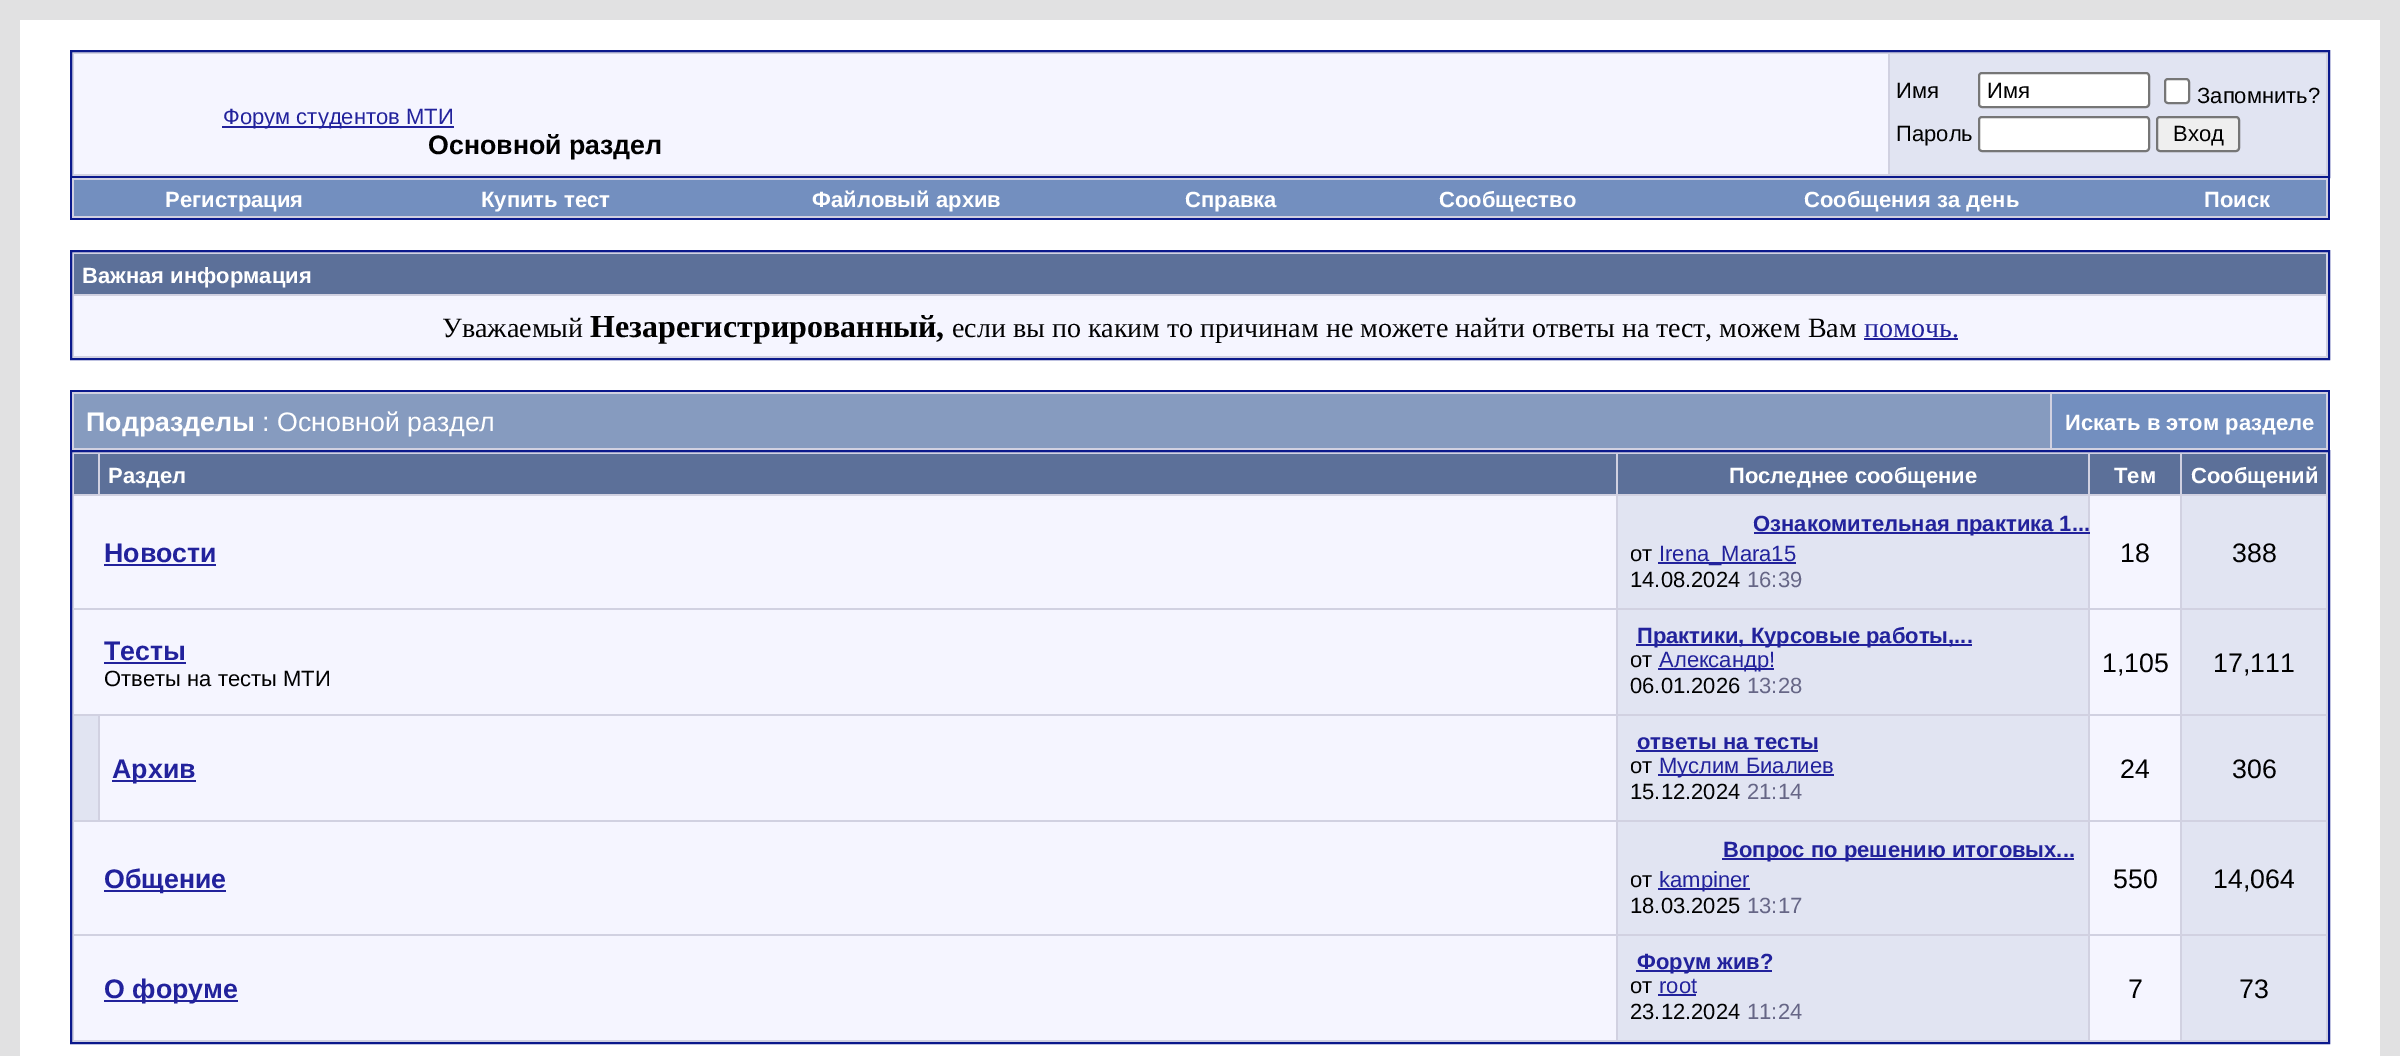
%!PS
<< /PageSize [2400 1056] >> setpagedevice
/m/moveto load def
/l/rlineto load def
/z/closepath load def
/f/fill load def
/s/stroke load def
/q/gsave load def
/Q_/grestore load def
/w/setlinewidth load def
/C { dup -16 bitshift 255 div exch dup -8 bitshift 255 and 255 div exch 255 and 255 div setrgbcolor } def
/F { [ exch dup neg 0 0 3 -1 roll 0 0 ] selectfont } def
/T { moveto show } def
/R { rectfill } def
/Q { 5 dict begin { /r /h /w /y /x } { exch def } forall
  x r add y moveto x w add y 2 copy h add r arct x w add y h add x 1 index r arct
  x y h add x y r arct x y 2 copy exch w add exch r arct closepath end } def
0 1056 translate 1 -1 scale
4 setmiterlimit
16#E1E1E2 C
0 0 2400 1056 R
16#FFFFFF C
20 20 2360 1036 R
16#D1D1E1 C
71 51 m 2258 0 l 0 126 l -2258 0 l z q f Q_
16#0B198C C
2 w
s
16#F5F5FF C
74 54 1814 120 R
16#22229C C
222 126 232 2 R
/LiberationSans-Regular 22 F
(Форум студентов МТИ) 223 124 T
/LiberationSans-Bold 26.75 F
16#000000 C
(Основной раздел) 428 154 T
16#E1E4F2 C
1890 54 436 120 R
/LiberationSans-Regular 22 F
16#000000 C
(Имя) 1896 98 T
16#FFFFFF C
1979 73 170 34 3 Q q f Q_
16#767676 C
s
16#000000 C
(Имя) 1987 98 T
16#FFFFFF C
2165 79 24 24 3 Q q f Q_
16#767676 C
s
16#000000 C
(Запомнить?) 2197 103 T
(Пароль) 1896 141 T
16#FFFFFF C
1979 117 170 34 3 Q q f Q_
16#767676 C
s
16#EFEFEF C
2157 117 82 34 3 Q q f Q_
16#767676 C
s
16#000000 C
(Вход) 2173 141 T
16#D1D1E1 C
72 178 2256 40 R
16#0B198C C
2328 178 2 42 R
70 218 2260 2 R
70 178 2 42 R
16#738FBF C
74 180 2252 36 R
/LiberationSans-Bold 22 F
16#FFFFFF C
(Регистрация) 165 207 T
(Купить тест) 481 207 T
(Файловый архив) 812 207 T
(Справка) 1185 207 T
(Сообщество) 1439 207 T
(Сообщения за день) 1804 207 T
(Поиск) 2204 207 T
16#D1D1E1 C
71 251 m 2258 0 l 0 108 l -2258 0 l z q f Q_
16#0B198C C
s
16#5C7099 C
74 254 2252 40 R
16#FFFFFF C
(Важная информация) 82 283 T
16#F5F5FF C
74 296 2252 60 R
/LiberationSerif-Regular 28 F
16#000000 C
(Уважаемый) 442 337 T
/LiberationSerif-Bold 32 F
(Незарегистрированный,) 590 337 T
/LiberationSerif-Regular 28 F
(если вы по каким то причинам не можете найти ответы на тест, можем Вам) 952 337 T
16#22229C C
(помочь.) 1864 337 T
1864 338 94 2 R
16#D1D1E1 C
72 392 2256 58 R
16#0B198C C
70 390 2260 2 R
2328 390 2 60 R
70 390 2 60 R
16#869BBF C
74 394 1976 54 R
/LiberationSans-Bold 26.75 F
16#FFFFFF C
(Подразделы) 86 431 T
/LiberationSans-Regular 26.75 F
(: Основной раздел) 262 431 T
16#738FBF C
2052 394 274 54 R
/LiberationSans-Bold 22 F
16#FFFFFF C
(Искать в этом разделе) 2065 430 T
16#D1D1E1 C
71 451 m 2258 0 l 0 592 l -2258 0 l z q f Q_
16#0B198C C
s
16#5C7099 C
74 454 24 40 R
100 454 1516 40 R
16#FFFFFF C
(Раздел) 108 483 T
16#5C7099 C
1618 454 470 40 R
16#FFFFFF C
(Последнее сообщение) 1729 483 T
16#5C7099 C
2090 454 90 40 R
16#FFFFFF C
(Тем) 2114 483 T
16#5C7099 C
2182 454 144 40 R
16#FFFFFF C
(Сообщений) 2191 483 T
16#F5F5FF C
74 496 1542 112 R
/LiberationSans-Bold 26.75 F
16#22229C C
(Новости) 104 562 T
104 564 112 2 R
16#E1E4F2 C
1618 496 470 112 R
16#22229C C
1754 532 336 2 R
/LiberationSans-Bold 22 F
(Ознакомительная практика 1...) 1753 531 T
/LiberationSans-Regular 22 F
16#000000 C
(от) 1630 561 T
16#22229C C
1658 562 138 2 R
(Irena_Mara15) 1659 561 T
16#000000 C
(14.08.2024) 1630 587 T
16#666686 C
(16:39) 1747 587 T
16#F5F5FF C
2090 496 90 112 R
/LiberationSans-Regular 26.75 F
16#000000 C
(18) 2120 562 T
16#E1E4F2 C
2182 496 144 112 R
16#000000 C
(388) 2232 562 T
16#F5F5FF C
74 610 1542 104 R
/LiberationSans-Bold 26.75 F
16#22229C C
(Тесты) 104 660 T
104 662 82 2 R
/LiberationSans-Regular 22 F
16#000000 C
(Ответы на тесты МТИ) 104 686 T
16#E1E4F2 C
1618 610 470 104 R
16#22229C C
1636 644 336 2 R
/LiberationSans-Bold 22 F
(Практики, Курсовые работы,...) 1637 643 T
/LiberationSans-Regular 22 F
16#000000 C
(от) 1630 667 T
16#22229C C
1658 668 116 2 R
(Александр!) 1659 667 T
16#000000 C
(06.01.2026) 1630 693 T
16#666686 C
(13:28) 1747 693 T
16#F5F5FF C
2090 610 90 104 R
/LiberationSans-Regular 26.75 F
16#000000 C
(1,105) 2102 672 T
16#E1E4F2 C
2182 610 144 104 R
16#000000 C
(17,111) 2213 672 T
16#E1E4F2 C
74 716 24 104 R
16#F5F5FF C
100 716 1516 104 R
16#22229C C
112 780 84 2 R
/LiberationSans-Bold 26.75 F
(Архив) 112 778 T
16#E1E4F2 C
1618 716 470 104 R
/LiberationSans-Bold 22 F
16#22229C C
(ответы на тесты) 1637 749 T
1636 750 182 2 R
/LiberationSans-Regular 22 F
16#000000 C
(от) 1630 773 T
16#22229C C
1658 774 176 2 R
(Муслим Биалиев) 1659 773 T
16#000000 C
(15.12.2024) 1630 799 T
16#666686 C
(21:14) 1747 799 T
16#F5F5FF C
2090 716 90 104 R
/LiberationSans-Regular 26.75 F
16#000000 C
(24) 2120 778 T
16#E1E4F2 C
2182 716 144 104 R
16#000000 C
(306) 2232 778 T
16#F5F5FF C
74 822 1542 112 R
16#22229C C
104 890 122 2 R
/LiberationSans-Bold 26.75 F
(Общение) 104 888 T
16#E1E4F2 C
1618 822 470 112 R
16#22229C C
1722 858 352 2 R
/LiberationSans-Bold 22 F
(Вопрос по решению итоговых...) 1723 857 T
/LiberationSans-Regular 22 F
16#000000 C
(от) 1630 887 T
16#22229C C
1658 888 92 2 R
(kampiner) 1659 887 T
16#000000 C
(18.03.2025) 1630 913 T
16#666686 C
(13:17) 1747 913 T
16#F5F5FF C
2090 822 90 112 R
/LiberationSans-Regular 26.75 F
16#000000 C
(550) 2113 888 T
16#E1E4F2 C
2182 822 144 112 R
16#000000 C
(14,064) 2213 888 T
16#F5F5FF C
74 936 1542 104 R
16#22229C C
104 1000 134 2 R
/LiberationSans-Bold 26.75 F
(О форуме) 104 998 T
16#E1E4F2 C
1618 936 470 104 R
16#22229C C
1636 970 136 2 R
/LiberationSans-Bold 22 F
(Форум жив?) 1637 969 T
/LiberationSans-Regular 22 F
16#000000 C
(от) 1630 993 T
16#22229C C
(root) 1659 993 T
1658 994 38 2 R
16#000000 C
(23.12.2024) 1630 1019 T
16#666686 C
(11:24) 1747 1019 T
16#F5F5FF C
2090 936 90 104 R
/LiberationSans-Regular 26.75 F
16#000000 C
(7) 2128 998 T
16#E1E4F2 C
2182 936 144 104 R
16#000000 C
(73) 2239 998 T
showpage
